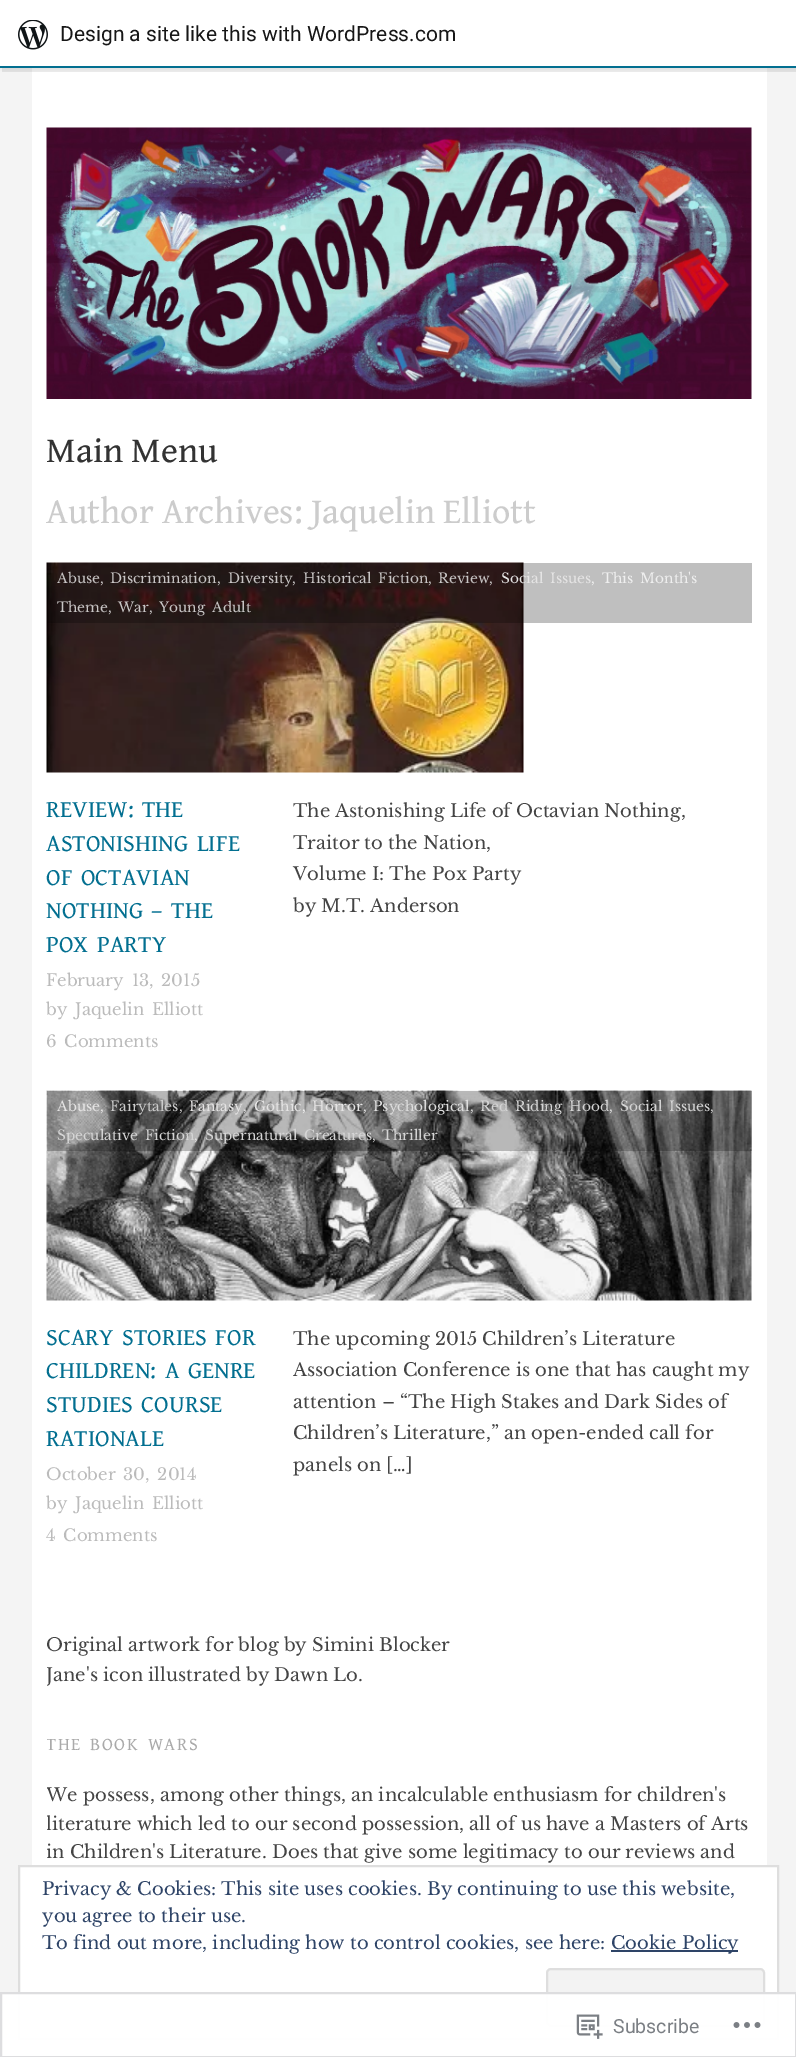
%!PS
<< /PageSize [796 2057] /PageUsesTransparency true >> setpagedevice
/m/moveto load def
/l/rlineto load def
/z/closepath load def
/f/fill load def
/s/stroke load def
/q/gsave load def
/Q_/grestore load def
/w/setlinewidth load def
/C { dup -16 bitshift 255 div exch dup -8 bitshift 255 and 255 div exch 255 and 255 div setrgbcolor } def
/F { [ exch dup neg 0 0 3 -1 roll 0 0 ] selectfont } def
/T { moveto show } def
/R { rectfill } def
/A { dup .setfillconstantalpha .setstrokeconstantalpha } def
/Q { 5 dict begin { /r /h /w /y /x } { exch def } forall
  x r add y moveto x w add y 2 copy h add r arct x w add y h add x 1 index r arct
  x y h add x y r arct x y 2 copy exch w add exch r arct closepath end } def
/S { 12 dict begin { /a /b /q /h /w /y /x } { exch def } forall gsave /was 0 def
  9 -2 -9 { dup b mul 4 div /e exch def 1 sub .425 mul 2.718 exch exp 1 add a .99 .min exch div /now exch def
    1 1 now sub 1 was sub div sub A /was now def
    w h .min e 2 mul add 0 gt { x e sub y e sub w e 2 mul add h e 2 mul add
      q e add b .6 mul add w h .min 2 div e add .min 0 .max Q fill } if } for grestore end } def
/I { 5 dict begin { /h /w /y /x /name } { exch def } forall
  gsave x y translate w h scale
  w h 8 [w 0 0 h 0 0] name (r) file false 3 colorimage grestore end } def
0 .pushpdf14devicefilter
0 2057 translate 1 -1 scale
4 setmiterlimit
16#F4F4F4 C
0 0 796 2057 R
16#FFFFFF C
32 68 735 1989 R
16#000000 C
0 2 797 67 0 1.5 .05 S
0.08 A
2 68 m 0 4 l 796 0 l 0 -67 l -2 0 l 0 63 l z f
1 A
16#FFFFFF C
0 0 796 66 R
(1.rgb) 18 20 30 30 I
/Roboto-Regular 21 F
16#171717 C
(Design a site like this with WordPress.com) 60 41 T
16#026F90 C
0 66 796 2 R
(2.rgb) 46 127 706 272 I
/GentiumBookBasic-Regular 36 F
16#333333 C
(Main Menu) 46 462 T
16#CCCCCC C
(Author Archives: Jaquelin Elliott) 46 523 T
(3.rgb) 46 562 478 211 I
0.25 A
16#000000 C
47 563 705 60 R
/LibreBaskerville-Regular 13.75 F
1 A
16#C8C5C5 C
(Abuse,) 57 583 T
(Discrimination,) 110 583 T
(Diversity) 228 583 T
(,) 292 583 T
303 583 m 3 0 32 (Historical Fiction) widthshow
(,) 428 583 T
(Review,) 438 583 T
16#E5E4E4 C
501 583 m 3 0 32 (Social Issues) widthshow
16#EFEFEF C
(,) 591 583 T
602 583 m 3 0 32 (This Month's) widthshow
16#C8C5C5 C
(Theme) 57 612 T
(,) 108 612 T
(War) 118 612 T
(,) 149 612 T
159 612 m 3 0 32 (Young Adult) widthshow
/GentiumBookBasic-Regular 24 F
16#026F90 C
46 817 m 3 0 32 (REVIEW: THE) widthshow
46 851 m 3 0 32 (ASTONISHING LIFE) widthshow
46 885 m 3 0 32 (OF OCTAVIAN) widthshow
46 918 m 3 0 32 (NOTHING – THE) widthshow
46 952 m 3 0 32 (POX PARTY) widthshow
/LibreBaskerville-Regular 16.5 F
16#BBBBBB C
46 986 m 3 0 32 (February 13, 2015) widthshow
(by) 46 1015 T
75 1015 m 3 0 32 (Jaquelin Elliott) widthshow
46 1047 m 3 0 32 (6 Comments) widthshow
/LibreBaskerville-Regular 18 F
16#444444 C
(The Astonishing Life of Octavian Nothing,) 293 817 T
(Traitor to the Nation,) 293 849 T
(Volume I: The Pox Party) 293 880 T
(by M.T. Anderson) 293 912 T
(4.rgb) 46 1090 706 211 I
0.25 A
16#000000 C
47 1091 705 60 R
/LibreBaskerville-Regular 13.75 F
1 A
16#E5E4E4 C
(Abuse) 57 1111 T
(,) 100 1111 T
16#CCCCCC C
(Fairytales) 110 1111 T
16#C8C5C5 C
(,) 179 1111 T
16#E5E4E4 C
(Fantasy) 189 1111 T
16#DEDEDE C
(,) 243 1111 T
16#E5E4E4 C
(Gothic) 254 1111 T
16#EFEFEF C
(,) 302 1111 T
16#E5E4E4 C
(Horror) 312 1111 T
16#DEDEDE C
(,) 363 1111 T
(Psychological) 373 1111 T
16#D5D5D5 C
(,) 470 1111 T
480 1111 m 3 0 32 (Red Riding Hood) widthshow
16#DEDEDE C
(,) 609 1111 T
16#D5D5D5 C
620 1111 m 3 0 32 (Social Issues) widthshow
16#CCCCCC C
(,) 710 1111 T
16#D5D5D5 C
57 1140 m 3 0 32 (Speculative Fiction) widthshow
16#E5E4E4 C
(,) 194 1140 T
16#D5D5D5 C
205 1140 m 3 0 32 (Supernatural Creatures) widthshow
16#CCCCCC C
(,) 372 1140 T
16#D5D5D5 C
(Thriller) 382 1140 T
/GentiumBookBasic-Regular 24 F
16#026F90 C
46 1345 m 3 0 32 (SCARY STORIES FOR) widthshow
46 1378 m 3 0 32 (CHILDREN: A GENRE) widthshow
46 1412 m 3 0 32 (STUDIES COURSE) widthshow
(RATIONALE) 46 1446 T
/LibreBaskerville-Regular 16.5 F
16#BBBBBB C
46 1480 m 3 0 32 (October 30, 2014) widthshow
(by) 46 1509 T
75 1509 m 3 0 32 (Jaquelin Elliott) widthshow
46 1541 m 3 0 32 (4 Comments) widthshow
/LibreBaskerville-Regular 18 F
16#444444 C
(The upcoming 2015 Children’s Literature) 293 1345 T
(Association Conference is one that has caught my) 293 1376 T
(attention – “The High Stakes and Dark Sides of) 293 1408 T
(Children’s Literature,” an open-ended call for) 293 1439 T
(panels on […]) 293 1471 T
q
47 1629 705 60 rectclip
(Original artwork for blog by Simini Blocker) 46 1651 T
(Jane's icon illustrated by Dawn Lo.) 46 1681 T
Q_
q
47 1734 705 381 rectclip
/GentiumBookBasic-Regular 18 F
16#AAAAAA C
46 1750 m 3 0 32 1.5 0 (THE BOOK WARS) awidthshow
/LibreBaskerville-Regular 18 F
16#444444 C
(We possess, among other things, an incalculable enthusiasm for children's) 46 1801 T
(literature which led to our second possession, all of us have a Masters of Arts) 46 1830 T
(in Children's Literature.) 46 1858 T
Q_
(Does that give some legitimacy to our reviews and) 272 1858 T
16#FFFFFF C
19 1866 m 759 0 l 0 173 l -759 0 l z q f Q_
16#DEDEDE C
2 w
s
16#2E4467 C
(Privacy & Cookies: This site uses cookies. By continuing to use this website,) 42 1895 T
(you agree to their use.) 42 1922 T
(To find out more, including how to control cookies, see here:) 42 1949 T
611 1950 127 2 R
(Cookie Policy) 611 1949 T
16#F3F3F3 C
547 1969 217 57 4 Q q f Q_
16#DEDEDE C
s
0.98 A
16#FFFFFF C
0 1992 796 65 R
16#DCDCDE C
1 1993 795 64 rectstroke
1 A
(5.rgb) 576 2014 27 25 I
/Roboto-Regular 19.5 F
16#7B7F84 C
(Subscribe) 613 2033 T
(6.rgb) 733 2022 28 6 I
.poppdf14devicefilter showpage
